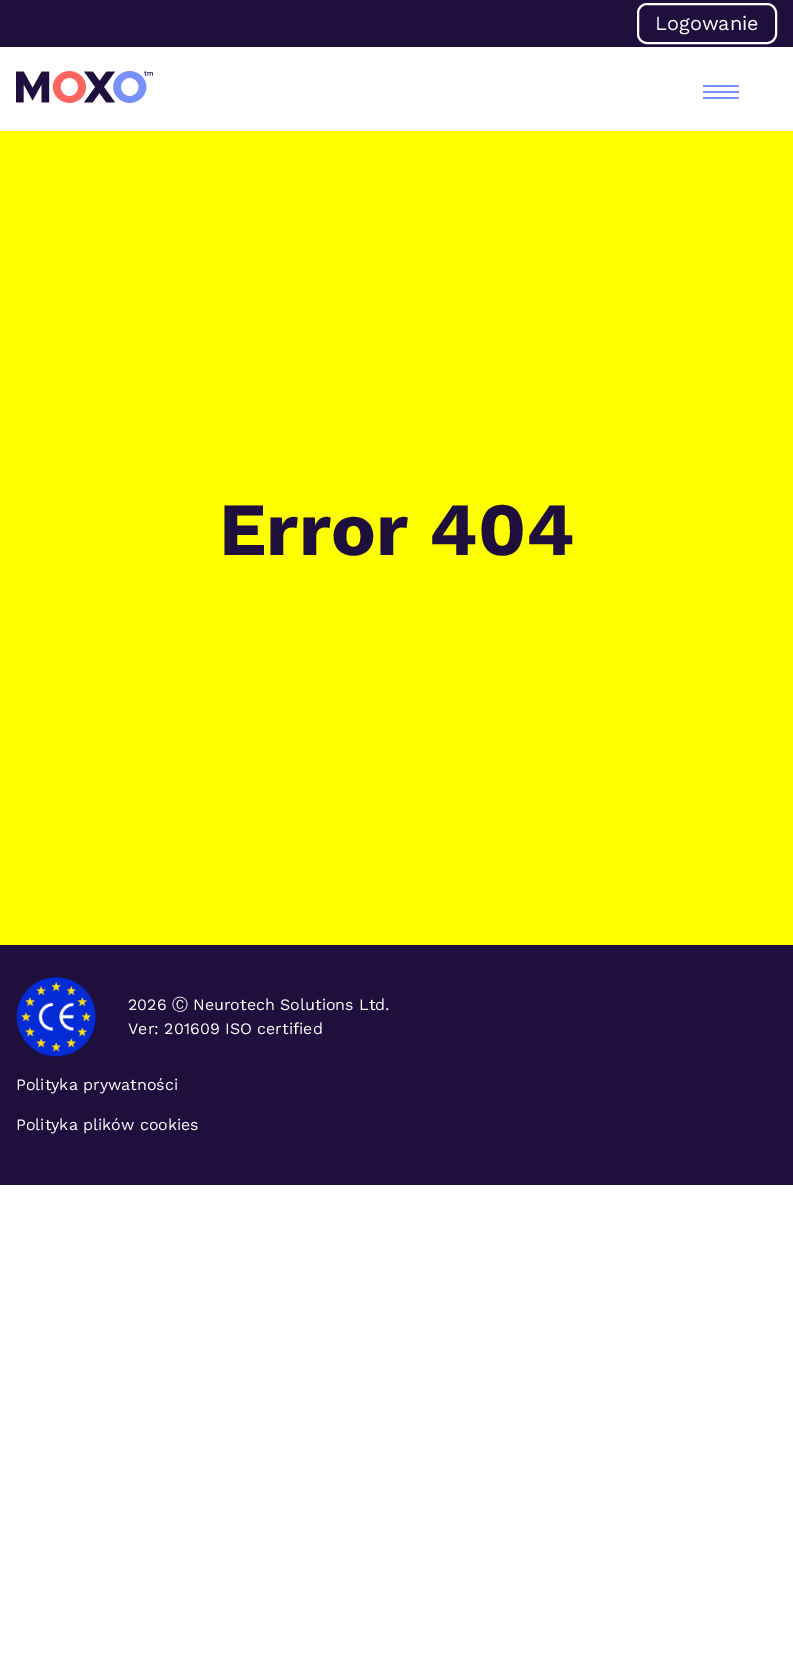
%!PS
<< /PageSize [793 1666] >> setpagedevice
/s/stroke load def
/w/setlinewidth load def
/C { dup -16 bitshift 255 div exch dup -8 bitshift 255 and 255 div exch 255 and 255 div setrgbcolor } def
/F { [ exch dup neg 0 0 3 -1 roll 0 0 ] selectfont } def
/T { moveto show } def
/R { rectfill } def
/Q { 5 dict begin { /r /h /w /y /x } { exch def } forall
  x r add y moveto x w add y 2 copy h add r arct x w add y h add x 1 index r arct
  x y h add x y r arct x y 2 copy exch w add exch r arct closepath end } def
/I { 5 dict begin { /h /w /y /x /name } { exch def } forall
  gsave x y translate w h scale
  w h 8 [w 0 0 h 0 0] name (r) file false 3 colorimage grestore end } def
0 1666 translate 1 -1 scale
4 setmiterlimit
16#FFFFFF C
0 0 793 1666 R
16#1E0F3C C
0 0 793 47 R
16#FFFFFF C
2 w
638 4 138 39 9 Q s
/WorkSans-Regular 20 F
(Logowanie) 655 30 T
(1.rgb) 16 71 137 32 I
16#7891FF C
703 85 36 2 R
703 91 36 2 R
703 97 36 2 R
16#FFFF00 C
0 131 793 814 R
/WorkSans-Bold 75 F
16#1E0F3C C
(Error 404) 219 555 T
0 945 793 240 R
(2.rgb) 16 977 80 80 I
/WorkSans-Regular 16 F
16#FFFFFF C
(2026) 128 1010 T
/WenQuanYiZenHei-Medium 16 F
(Ⓒ) 172 1010 T
/WorkSans-Regular 16 F
(Neurotech Solutions Ltd.) 193 1010 T
(Ver: 201609 ISO certified) 128 1034 T
(Polityka prywatności) 16 1090 T
(Polityka plików cookies) 16 1130 T
showpage
